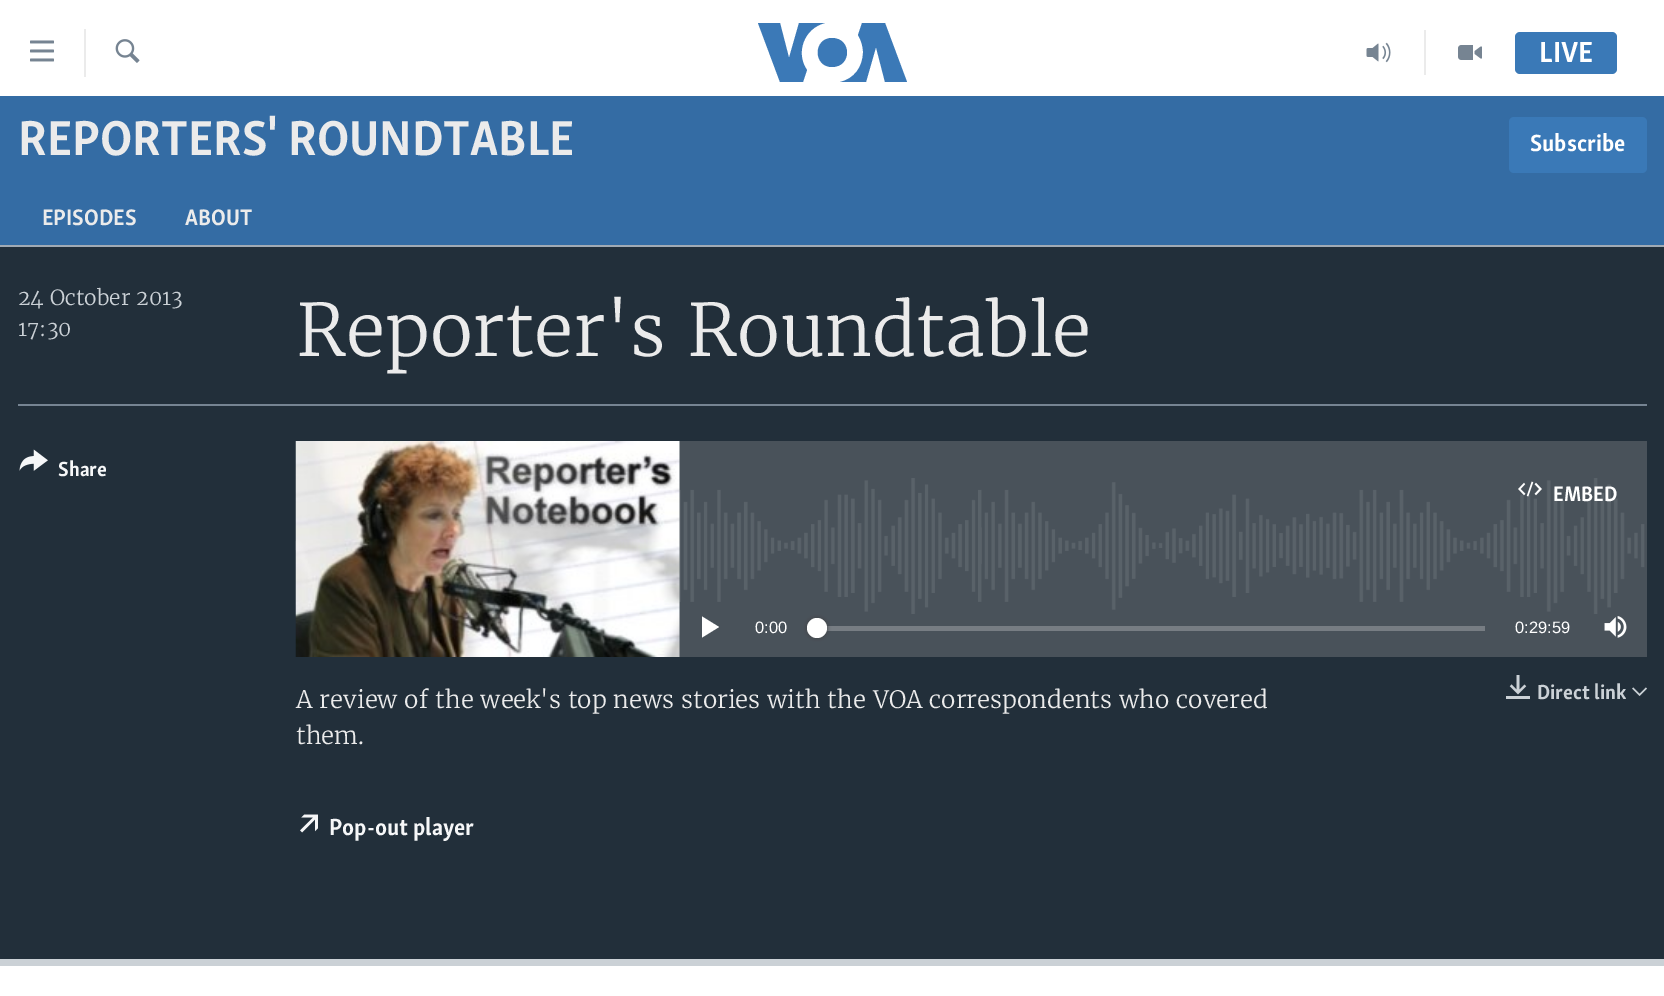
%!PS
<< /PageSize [1664 996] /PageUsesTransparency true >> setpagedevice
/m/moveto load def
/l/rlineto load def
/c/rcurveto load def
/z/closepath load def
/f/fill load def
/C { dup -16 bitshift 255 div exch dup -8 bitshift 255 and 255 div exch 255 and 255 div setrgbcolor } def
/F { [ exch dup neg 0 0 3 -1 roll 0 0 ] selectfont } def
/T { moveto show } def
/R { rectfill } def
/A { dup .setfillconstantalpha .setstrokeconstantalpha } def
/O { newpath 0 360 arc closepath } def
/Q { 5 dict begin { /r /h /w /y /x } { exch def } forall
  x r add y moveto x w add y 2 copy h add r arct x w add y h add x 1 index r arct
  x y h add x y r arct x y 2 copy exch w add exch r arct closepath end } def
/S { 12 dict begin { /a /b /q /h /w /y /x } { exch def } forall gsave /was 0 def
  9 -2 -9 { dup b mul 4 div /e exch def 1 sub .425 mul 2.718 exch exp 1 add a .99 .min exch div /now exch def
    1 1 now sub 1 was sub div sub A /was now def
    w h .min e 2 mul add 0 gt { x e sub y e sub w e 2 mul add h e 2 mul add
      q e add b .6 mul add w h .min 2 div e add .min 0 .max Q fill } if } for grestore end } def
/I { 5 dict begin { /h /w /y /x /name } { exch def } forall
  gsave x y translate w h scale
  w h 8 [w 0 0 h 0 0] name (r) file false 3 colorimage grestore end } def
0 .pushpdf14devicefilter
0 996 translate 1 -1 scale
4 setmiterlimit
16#FFFFFF C
0 0 1664 996 R
(1.rgb) 30 40 24 22 I
16#EBEBEB C
84 29 2 48 R
(2.rgb) 115 39 25 24 I
16#3B79B7 C
807 70 m -4 12 l -23 0 l -22 -59 l 22 0 l 9 35 l 10 -35 l 26 0 l -21 5 -30 30 -18 47 c z 832 38 m -19 0 -19 29 0 29 c 20 0 20 -29 0 -29 c z 863 52 m 0 15 -9 27 -23 30 c 26 0 l 10 -35 l 9 35 l 22 0 l -22 -59 l -23 0 l -4 12 l 3 5 5 11 5 17 c z f
16#EBEBEB C
1424 30 2 45 R
(3.rgb) 1366 42 25 21 I
(4.rgb) 1458 45 24 15 I
16#3A79B7 C
1515 32 102 42 5 Q f
/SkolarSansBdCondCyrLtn-Bold 30 F
16#FFFFFF C
(LIVE) 1539 62 T
16#346CA4 C
0 96 1664 149 R
/SkolarSansBdCondCyrLtn-Bold 50.25 F
16#EBEBEB C
(REPORTERS' ROUNDTABLE) 18 155 T
16#3A79B7 C
1509 117 138 56 5 Q f
/SkolarSansBdCondCyrLtn-Bold 24 F
16#FFFFFF C
(Subscribe) 1530 151 T
/SkolarSansBdCondCyrLtn-Bold 23 F
16#EBEBEB C
(EPISODES) 42 225 T
(ABOUT) 185 225 T
16#222F3A C
0 247 1664 712 R
16#A1AAB4 C
0 245 1664 2 R
16#CBD1D6 C
0 959 1664 7 R
/Merriweather-Light 21 F
(24 October 2013) 18 305 T
(17:30) 18 336 T
/Merriweather-Light 72 F
16#EBEBEB C
(Reporter's Roundtable) 296 356 T
16#768492 C
18 404 1629 2 R
(5.rgb) 19 449 29 22 I
/SkolarSansBdCondCyrLtn-Bold 21 F
16#F6F7F8 C
(Share) 58 476 T
16#49525A C
679 441 968 216 R
(6.rgb) 295 478 1350 136 I
(7.rgb) 295 441 385 216 I
(8.rgb) 1518 481 24 16 I
/SkolarSansBdCondCyrLtn-Bold 21.5 F
16#FFFFFF C
(EMBED) 1553 501 T
702 637.5 m 17 -10.5 l -17 -10.5 l z f
/LiberationSans-Regular 16.5 F
(0:00) 755 633 T
16#777D83 C
826 626 659 5 R
16#414144 C
807 618 20 20 10 2 1 S
16#FFFFFF C
817 628 10 O f
(0:29:59) 1515 633 T
(9.rgb) 1604 616 23 22 I
/Merriweather-Light 24 F
16#EBEBEB C
(A review of the week's top news stories with the VOA correspondents who covered) 296 708 T
(them.) 296 744 T
(10.rgb) 1506 675 24 24 I
/SkolarSansBdCondCyrLtn-Bold 21 F
16#CBD1D6 C
(Direct link) 1537 699 T
(11.rgb) 1632 687 15 9 I
(12.rgb) 300 814 18 19 I
/SkolarSansBdCondCyrLtn-Bold 24 F
16#F6F7F8 C
(Pop-out player) 329 835 T
.poppdf14devicefilter showpage
